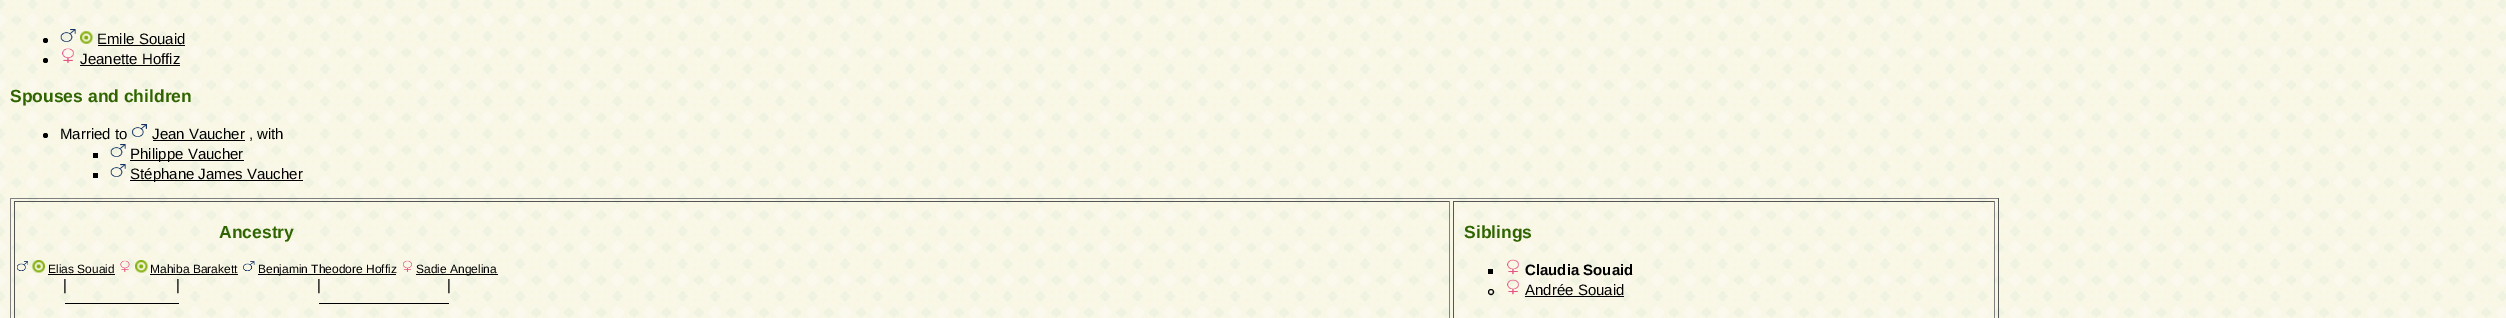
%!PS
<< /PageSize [2506 318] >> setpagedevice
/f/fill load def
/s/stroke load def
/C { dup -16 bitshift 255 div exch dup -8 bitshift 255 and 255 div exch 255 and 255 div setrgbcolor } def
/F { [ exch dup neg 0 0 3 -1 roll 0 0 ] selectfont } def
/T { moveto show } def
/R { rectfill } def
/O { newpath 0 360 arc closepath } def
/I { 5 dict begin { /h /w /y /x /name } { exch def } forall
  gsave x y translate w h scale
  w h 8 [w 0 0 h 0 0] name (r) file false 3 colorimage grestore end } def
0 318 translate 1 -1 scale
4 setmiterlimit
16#FFFFFF C
0 0 2506 318 R
(1.rgb) 0 0 2506 318 I
16#000000 C
45.5 40.5 2.5 O f
(2.rgb) 60 29 16 13 I
(3.rgb) 80 31 13 13 I
/LiberationSans-Regular 15 F
(Emile Souaid) 97 44 T
98 45 87 1 R
45.5 60.5 2.5 O f
(4.rgb) 62 48 12 15 I
(Jeanette Hoffiz) 80 64 T
80 65 100 1 R
/LiberationSans-Bold 17.5 F
16#2F6400 C
(Spouses and children) 10 102 T
16#000000 C
45.5 135.5 2.5 O f
/LiberationSans-Regular 15 F
(Married to) 60 139 T
(5.rgb) 132 124 15 13 I
153 140 92 1 R
(Jean Vaucher , with) 152 139 T
93 153 5 5 R
(6.rgb) 110 144 16 13 I
130 160 114 1 R
(Philippe Vaucher) 130 159 T
93 173 5 5 R
(7.rgb) 110 164 16 13 I
130 180 173 1 R
(Stéphane James Vaucher) 130 179 T
16#808080 C
10 198 1989 1 R
16#555555 C
1998 198 1 120 R
16#808080 C
10 198 1 120 R
16#555555 C
14 201 1436 1 R
16#808080 C
1449 201 1 117 R
16#555555 C
14 201 1 117 R
/LiberationSans-Bold 17.5 F
16#2F6400 C
(Ancestry) 219 238 T
(8.rgb) 17 261 11 10 I
(9.rgb) 32 260 13 13 I
/LiberationSans-Regular 12 F
16#000000 C
(Elias Souaid) 48 273 T
48 274 67 1 R
(10.rgb) 120 260 10 12 I
(11.rgb) 135 260 13 13 I
(Mahiba Barakett) 150 273 T
150 274 88 1 R
(12.rgb) 243 261 12 10 I
258 274 138 1 R
(Benjamin Theodore Hoffiz) 258 273 T
(13.rgb) 403 260 9 12 I
416 274 82 1 R
(Sadie Angelina) 416 273 T
/LiberationSans-Regular 15 F
(|) 63 290 T
(|) 176 290 T
(|) 317 290 T
(|) 447 290 T
65 303 114 1 R
319 303 130 1 R
16#555555 C
1453 201 542 1 R
16#808080 C
1994 201 1 117 R
16#555555 C
1453 201 1 117 R
/LiberationSans-Bold 17.5 F
16#2F6400 C
(Siblings) 1464 238 T
16#000000 C
1488 269 5 5 R
(14.rgb) 1507 259 12 16 I
/LiberationSans-Bold 15 F
(Claudia Souaid) 1525 275 T
1491 292 2.5 O s
(15.rgb) 1507 279 12 16 I
/LiberationSans-Regular 15 F
(Andrée Souaid) 1525 295 T
1525 296 99 1 R
showpage
